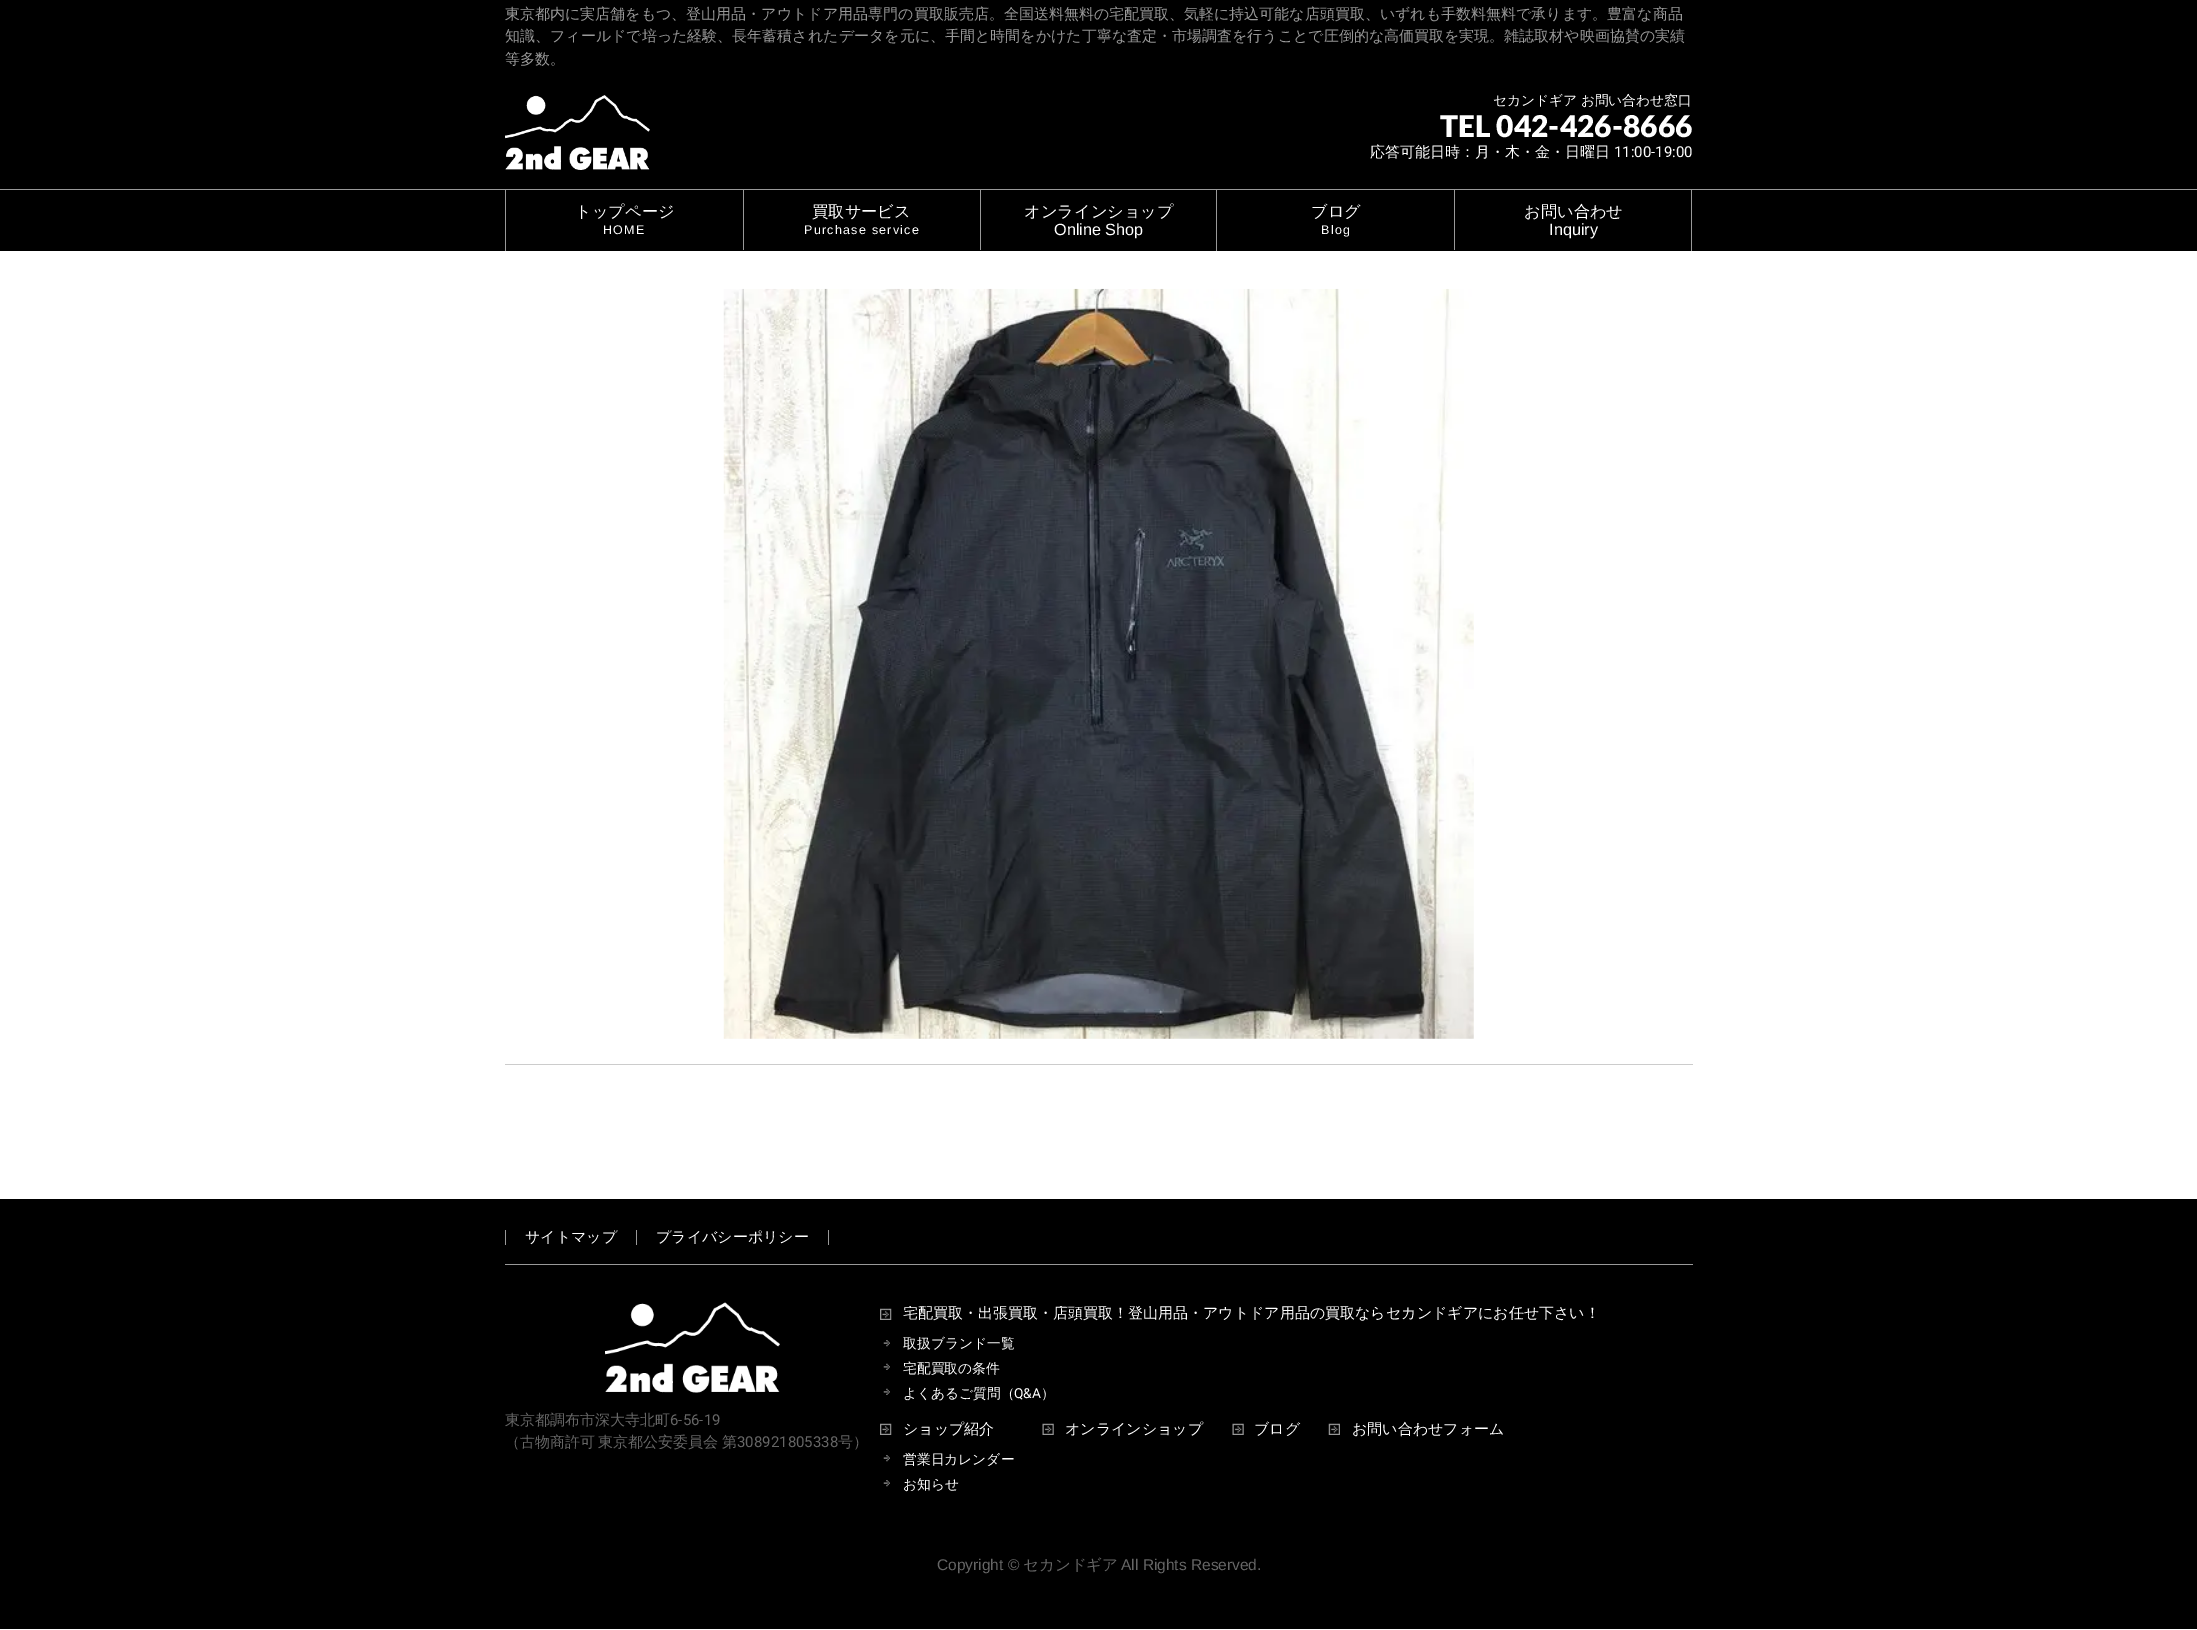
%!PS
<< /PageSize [2197 1630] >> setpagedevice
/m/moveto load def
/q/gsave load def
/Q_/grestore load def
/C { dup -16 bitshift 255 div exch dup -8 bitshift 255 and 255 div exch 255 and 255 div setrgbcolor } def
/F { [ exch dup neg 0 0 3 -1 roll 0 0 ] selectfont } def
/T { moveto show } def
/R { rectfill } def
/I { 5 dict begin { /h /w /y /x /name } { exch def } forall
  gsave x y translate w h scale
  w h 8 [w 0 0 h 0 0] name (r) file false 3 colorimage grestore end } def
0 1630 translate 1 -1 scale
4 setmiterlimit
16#FFFFFF C
0 0 2197 1630 R
16#000000 C
0 0 2197 189 R
/WenQuanYiZenHei-Medium 15 F
16#999999 C
(東京都内に実店舗をもつ、登山用品・アウトドア用品専門の買取販売店。全国送料無料の宅配買取、気軽に持込可能な店頭買取、いずれも手数料無料で承ります。豊富な商品) 505 19 T
(知識、フィールドで培った経験、長年蓄積されたデータを元に、手間と時間をかけた丁寧な査定・市場調査を行うことで圧倒的な高価買取を実現。雑誌取材や映画協賛の実績) 505 41 T
(等多数。) 505 64 T
(1.rgb) 505 95 145 75 I
/WenQuanYiZenHei-Medium 13.75 F
16#FFFFFF C
1493 105 m -1 0 32 (セカンドギア お問い合わせ窓口) widthshow
/Lato-Black 30 F
(TEL 042-426-8666) 1440 137 T
/WenQuanYiZenHei-Medium 15 F
(応答可能日時：月・木・金・日曜日) 1370 157 T
/Roboto-Regular 15 F
(11:00-19:00) 1614 157 T
16#000000 C
0 190 2197 61 R
16#999999 C
0 189 2197 1 R
505 190 1 61 R
743 190 1 60 R
/WenQuanYiZenHei-Medium 16.25 F
16#FFFFFF C
(トップページ) 575 217 T
/LiberationSans-Regular 12.5 F
603 234 m 1.25 0 (HOME) ashow
16#999999 C
980 190 1 60 R
/WenQuanYiZenHei-Medium 16.25 F
16#FFFFFF C
(買取サービス) 812 217 T
/LiberationSans-Regular 12.5 F
804 234 m 1.25 0 (Purchase service) ashow
16#999999 C
1216 190 1 61 R
/WenQuanYiZenHei-Medium 16.25 F
16#FFFFFF C
(オンラインショップ) 1024 217 T
/LiberationSans-Regular 16.25 F
(Online Shop) 1054 235 T
16#999999 C
1454 190 1 60 R
/WenQuanYiZenHei-Medium 16.25 F
16#FFFFFF C
(ブログ) 1311 217 T
/LiberationSans-Regular 12.5 F
1321 234 m 1.25 0 (Blog) ashow
16#999999 C
1691 190 1 61 R
/WenQuanYiZenHei-Medium 16.25 F
16#FFFFFF C
(お問い合わせ) 1524 217 T
/LiberationSans-Regular 16.25 F
(Inquiry) 1549 235 T
(2.rgb) 723 288 751 751 I
16#CCCCCC C
505 1064 1188 1 R
16#000000 C
0 1199 2197 430 R
16#999999 C
505 1264 1188 1 R
505 1230 1 15 R
q
506 1230 1187 15 rectclip
/WenQuanYiZenHei-Medium 15 F
16#FFFFFF C
(サイトマップ) 525 1242 T
Q_
636 1230 1 15 R
q
506 1230 1187 15 rectclip
/WenQuanYiZenHei-Medium 15 F
16#FFFFFF C
(プライバシーポリシー) 656 1242 T
Q_
828 1230 1 15 R
(3.rgb) 605 1302 175 91 I
/WenQuanYiZenHei-Medium 15 F
16#666666 C
(東京都調布市深大寺北町) 505 1425 T
/Roboto-Regular 15 F
(6-56-19) 670 1425 T
/WenQuanYiZenHei-Medium 15 F
505 1447 m -1 0 32 (（古物商許可 東京都公安委員会 第) widthshow
/Roboto-Regular 15 F
(308921805338) 737 1447 T
/WenQuanYiZenHei-Medium 15 F
(号）) 838 1447 T
(4.rgb) 880 1308 12 12 I
q
880 1306 744 23 rectclip
16#FFFFFF C
(宅配買取・出張買取・店頭買取！登山用品・アウトドア用品の買取ならセカンドギアにお任せ下さい！) 903 1318 T
Q_
(5.rgb) 883 1340 7 7 I
/WenQuanYiZenHei-Medium 13.75 F
16#FFFFFF C
(取扱ブランド一覧) 903 1348 T
(6.rgb) 883 1363 7 7 I
(宅配買取の条件) 903 1373 T
(6.rgb) 883 1388 7 7 I
(よくあるご質問（) 903 1398 T
/Roboto-Regular 13.75 F
(Q&A) 1014 1398 T
/WenQuanYiZenHei-Medium 13.75 F
(）) 1041 1398 T
(4.rgb) 880 1423 12 12 I
/WenQuanYiZenHei-Medium 15 F
(ショップ紹介) 903 1434 T
(5.rgb) 883 1455 7 7 I
/WenQuanYiZenHei-Medium 13.75 F
(営業日カレンダー) 903 1464 T
(5.rgb) 883 1480 7 7 I
(お知らせ) 903 1489 T
(7.rgb) 1042 1423 12 12 I
/WenQuanYiZenHei-Medium 15 F
(オンラインショップ) 1065 1434 T
(8.rgb) 1232 1423 12 12 I
(ブログ) 1254 1434 T
(9.rgb) 1328 1423 12 12 I
(お問い合わせフォーム) 1352 1434 T
/LiberationSans-Regular 15.5 F
16#666666 C
(Copyright ©) 937 1570 T
/WenQuanYiZenHei-Medium 15.5 F
(セカンドギア) 1023 1570 T
/LiberationSans-Regular 15.5 F
(All Rights Reserved.) 1121 1570 T
showpage
